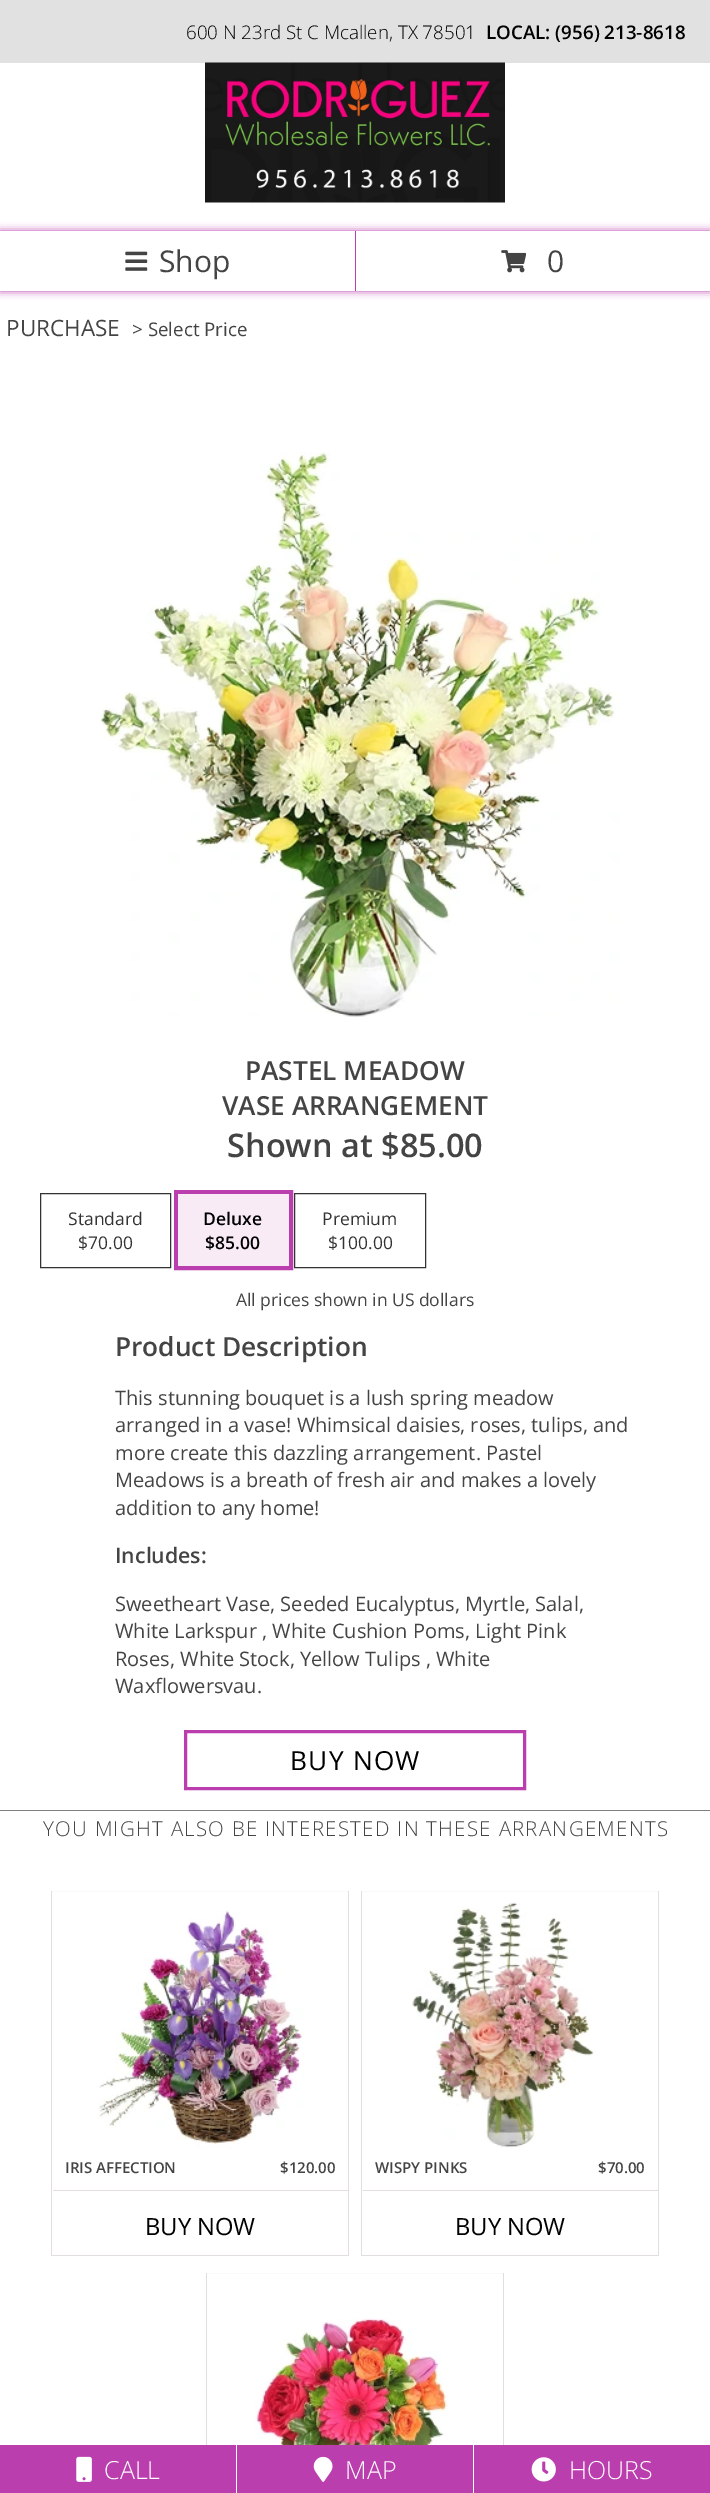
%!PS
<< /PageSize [710 2493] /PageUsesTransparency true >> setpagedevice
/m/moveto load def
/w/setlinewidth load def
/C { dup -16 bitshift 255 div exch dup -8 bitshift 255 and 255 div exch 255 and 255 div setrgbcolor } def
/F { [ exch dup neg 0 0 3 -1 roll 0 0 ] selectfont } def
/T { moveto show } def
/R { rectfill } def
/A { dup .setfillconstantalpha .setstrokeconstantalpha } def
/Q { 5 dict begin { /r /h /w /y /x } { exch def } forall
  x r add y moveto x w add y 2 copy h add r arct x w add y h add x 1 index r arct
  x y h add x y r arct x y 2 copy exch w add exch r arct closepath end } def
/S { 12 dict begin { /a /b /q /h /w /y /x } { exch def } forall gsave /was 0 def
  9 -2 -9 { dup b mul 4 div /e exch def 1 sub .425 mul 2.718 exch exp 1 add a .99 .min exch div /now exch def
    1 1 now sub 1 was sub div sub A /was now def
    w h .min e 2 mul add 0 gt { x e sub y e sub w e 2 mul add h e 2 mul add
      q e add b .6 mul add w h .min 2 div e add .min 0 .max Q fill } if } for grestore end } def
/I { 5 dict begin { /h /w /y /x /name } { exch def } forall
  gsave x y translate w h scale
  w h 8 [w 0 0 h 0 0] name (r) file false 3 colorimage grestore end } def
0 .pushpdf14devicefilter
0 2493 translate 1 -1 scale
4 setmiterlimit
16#FFFFFF C
0 0 710 2493 R
16#E1E1E1 C
0 0 710 63 R
/OpenSans-Light 18.75 F
16#000000 C
(600 N 23rd St C Mcallen, TX 78501) 186 39 T
/OpenSans-SemiBold 18.75 F
(LOCAL: \(956\) 213-8618) 486 39 T
(1.rgb) 205 62 300 141 I
16#BB3EAE C
0 231 710 60 0 4 1 S
355 231 1 60 R
16#FFFFFF C
0 231 355 60 R
(2.rgb) 125 251 23 20 I
/OpenSans-Regular 30 F
16#444444 C
(Shop) 159 272 T
16#FFFFFF C
356 231 354 60 R
(3.rgb) 501 250 25 23 I
16#444444 C
(0) 547 272 T
/OpenSans-Regular 22.5 F
(PURCHASE) 6 336 T
/OpenSans-Regular 18.75 F
(> Select Price) 132 336 T
(4.rgb) 100 452 520 565 I
/OpenSans-SemiBold 26.25 F
(PASTEL MEADOW) 245 1080 T
(VASE ARRANGEMENT) 222 1115 T
/OpenSans-SemiBold 32.5 F
(Shown at $85.00) 227 1157 T
16#333333 C
40.5 1193.5 130 74 rectstroke
/OpenSans-Regular 17.5 F
(Standard) 68 1225 T
($70.00) 78 1249 T
16#BB3EAE C
4 w
176 1192 115 76 rectstroke
16#F8EBF6 C
178 1194 111 72 R
/OpenSans-SemiBold 17.5 F
16#000000 C
(Deluxe) 203 1225 T
($85.00) 205 1249 T
16#333333 C
1 w
294.5 1193.5 131 74 rectstroke
/OpenSans-Regular 17.5 F
(Premium) 322 1225 T
($100.00) 328 1249 T
16#444444 C
(All prices shown in US dollars) 236 1306 T
/OpenSans-SemiBold 26.25 F
(Product Description) 115 1356 T
/OpenSans-Regular 20 F
(This stunning bouquet is a lush spring meadow) 115 1405 T
(arranged in a vase! Whimsical daisies, roses, tulips, and) 115 1432 T
(more create this dazzling arrangement. Pastel) 115 1460 T
(Meadows is a breath of fresh air and makes a lovely) 115 1487 T
(addition to any home!) 115 1515 T
/OpenSans-SemiBold 21.25 F
(Includes:) 115 1563 T
/OpenSans-Regular 20 F
(Sweetheart Vase, Seeded Eucalyptus, Myrtle, Salal,) 115 1611 T
(White Larkspur , White Cushion Poms, Light Pink) 115 1638 T
(Roses, White Stock, Yellow Tulips , White) 115 1666 T
(Waxflowersvau.) 115 1693 T
16#BB3EAE C
3 w
185.5 1731.5 339 57 rectstroke
/OpenSans-Regular 26.25 F
16#000000 C
290 1770 m 1.25 0 (BUY NOW) ashow
16#808080 C
0 1810 710 1 R
/OpenSans-Light 20.5 F
16#444444 C
43 1836 m 1.25 0 (YOU MIGHT ALSO BE INTERESTED IN THESE ARRANGEMENTS) ashow
16#F9F9F9 C
51 1891 298 1 R
16#E2DEDD C
348 1891 1 365 R
51 2255 298 1 R
51 1891 1 365 R
(5.rgb) 98 1910 206 239 I
/OpenSans-SemiBold 15 F
16#444444 C
(IRIS AFFECTION) 65 2173 T
($120.00) 280 2173 T
16#E2DEDD C
53 2190 295 1 R
/OpenSans-Regular 23.75 F
16#000000 C
(BUY NOW) 145 2235 T
16#F9F9F9 C
361 1891 298 1 R
16#E2DEDD C
658 1891 1 365 R
361 2255 298 1 R
361 1891 1 365 R
(6.rgb) 412 1902 182 246 I
/OpenSans-SemiBold 15 F
16#444444 C
(WISPY PINKS) 375 2173 T
($70.00) 598 2173 T
16#E2DEDD C
363 2190 295 1 R
/OpenSans-Regular 23.75 F
16#000000 C
(BUY NOW) 455 2235 T
16#F9F9F9 C
206 2273 298 1 R
16#E2DEDD C
503 2273 1 172 R
206 2273 1 172 R
(7.rgb) 254 2318 194 127 I
16#BB3EAE C
0 2445 236 48 R
(8.rgb) 76 2456 16 26 I
/OpenSans-Light 25 F
16#FFFFFF C
(CALL) 104 2479 T
16#BB3EAE C
237 2445 236 48 R
(9.rgb) 313 2456 20 26 I
16#FFFFFF C
(MAP) 345 2479 T
16#BB3EAE C
474 2445 236 48 R
(10.rgb) 531 2457 25 25 I
16#FFFFFF C
(HOURS) 569 2479 T
.poppdf14devicefilter showpage
